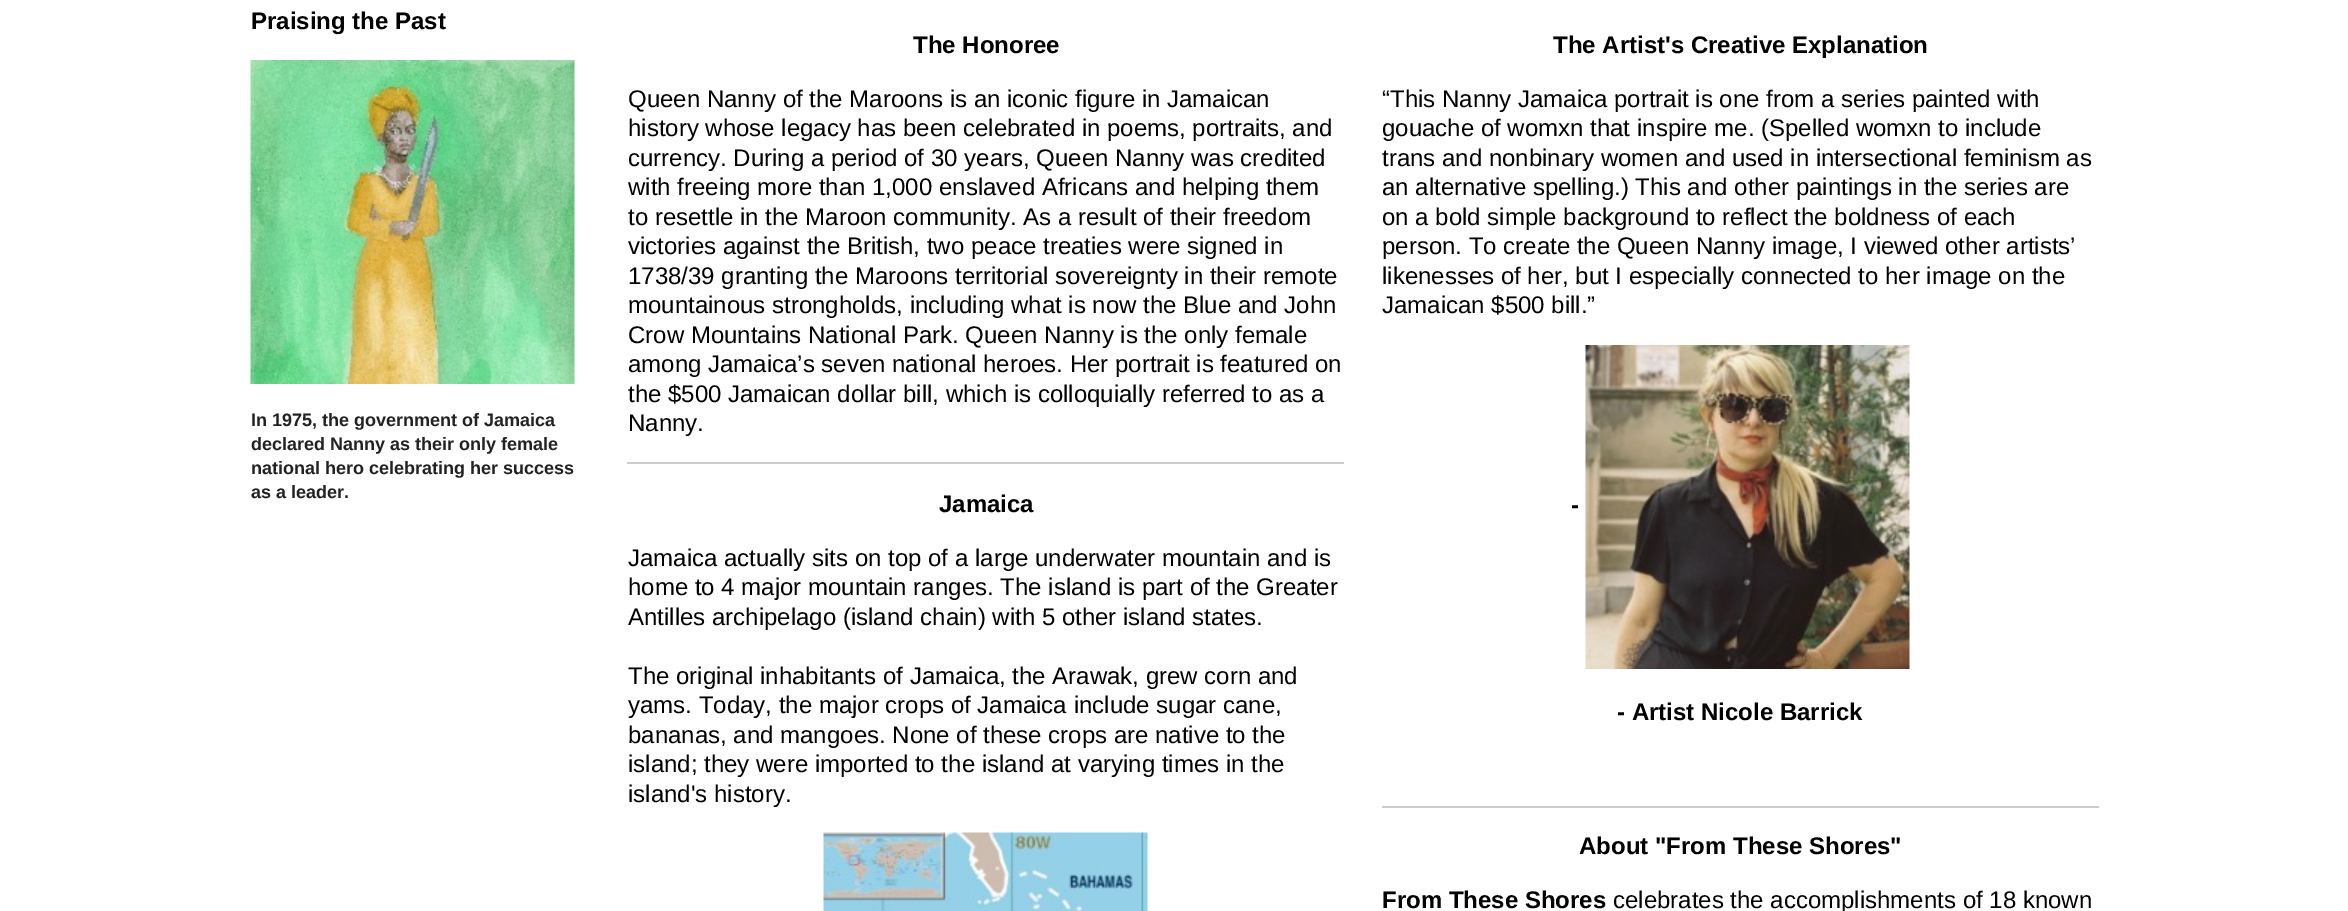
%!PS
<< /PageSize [2348 911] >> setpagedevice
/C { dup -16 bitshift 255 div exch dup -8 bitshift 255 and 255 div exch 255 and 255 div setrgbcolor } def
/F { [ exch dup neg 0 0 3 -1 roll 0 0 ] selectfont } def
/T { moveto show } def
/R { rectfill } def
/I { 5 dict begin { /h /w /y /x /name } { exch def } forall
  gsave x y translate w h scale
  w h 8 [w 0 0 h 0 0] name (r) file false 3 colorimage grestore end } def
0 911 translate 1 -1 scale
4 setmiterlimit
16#FFFFFF C
0 0 2348 911 R
/LiberationSans-Bold 24 F
16#000000 C
(Praising the Past) 251 29 T
(1.rgb) 250 60 325 324 I
/LiberationSans-Bold 18 F
16#222222 C
(In 1975, the government of Jamaica) 251 426 T
(declared Nanny as their only female) 251 450 T
(national hero celebrating her success) 251 474 T
(as a leader.) 251 498 T
/LiberationSans-Bold 24 F
16#000000 C
(The Honoree) 913 53 T
/LiberationSans-Regular 24 F
(Queen Nanny of the Maroons is an iconic figure in Jamaican) 628 107 T
(history whose legacy has been celebrated in poems, portraits, and) 628 136 T
(currency. During a period of 30 years, Queen Nanny was credited) 628 166 T
(with freeing more than 1,000 enslaved Africans and helping them) 628 195 T
(to resettle in the Maroon community. As a result of their freedom) 628 225 T
(victories against the British, two peace treaties were signed in) 628 254 T
(1738/39 granting the Maroons territorial sovereignty in their remote) 628 284 T
(mountainous strongholds, including what is now the Blue and John) 628 313 T
(Crow Mountains National Park. Queen Nanny is the only female) 628 343 T
(among Jamaica’s seven national heroes. Her portrait is featured on) 628 372 T
(the $500 Jamaican dollar bill, which is colloquially referred to as a) 628 402 T
(Nanny.) 628 431 T
16#CCCCCC C
627 462 717 2 R
/LiberationSans-Bold 24 F
16#000000 C
(Jamaica) 939 512 T
/LiberationSans-Regular 24 F
(Jamaica actually sits on top of a large underwater mountain and is) 628 566 T
(home to 4 major mountain ranges. The island is part of the Greater) 628 595 T
(Antilles archipelago \(island chain\) with 5 other island states.) 628 625 T
(The original inhabitants of Jamaica, the Arawak, grew corn and) 628 684 T
(yams. Today, the major crops of Jamaica include sugar cane,) 628 713 T
(bananas, and mangoes. None of these crops are native to the) 628 743 T
(island; they were imported to the island at varying times in the) 628 772 T
(island's history.) 628 802 T
(2.rgb) 823 832 325 79 I
/LiberationSans-Bold 24 F
(The Artist's Creative Explanation) 1553 53 T
/LiberationSans-Regular 24 F
(“This Nanny Jamaica portrait is one from a series painted with) 1382 107 T
(gouache of womxn that inspire me. \(Spelled womxn to include) 1382 136 T
(trans and nonbinary women and used in intersectional feminism as) 1382 166 T
(an alternative spelling.\) This and other paintings in the series are) 1382 195 T
(on a bold simple background to reflect the boldness of each) 1382 225 T
(person. To create the Queen Nanny image, I viewed other artists’) 1382 254 T
(likenesses of her, but I especially connected to her image on the) 1382 284 T
(Jamaican $500 bill.”) 1382 313 T
/LiberationSans-Bold 24 F
(-) 1571 513 T
(3.rgb) 1585 345 325 324 I
(- Artist Nicole Barrick) 1617 720 T
16#CCCCCC C
1382 806 717 2 R
16#000000 C
(About "From These Shores") 1579 854 T
(From These Shores) 1382 908 T
/LiberationSans-Regular 24 F
(celebrates the accomplishments of 18 known) 1613 908 T
showpage
